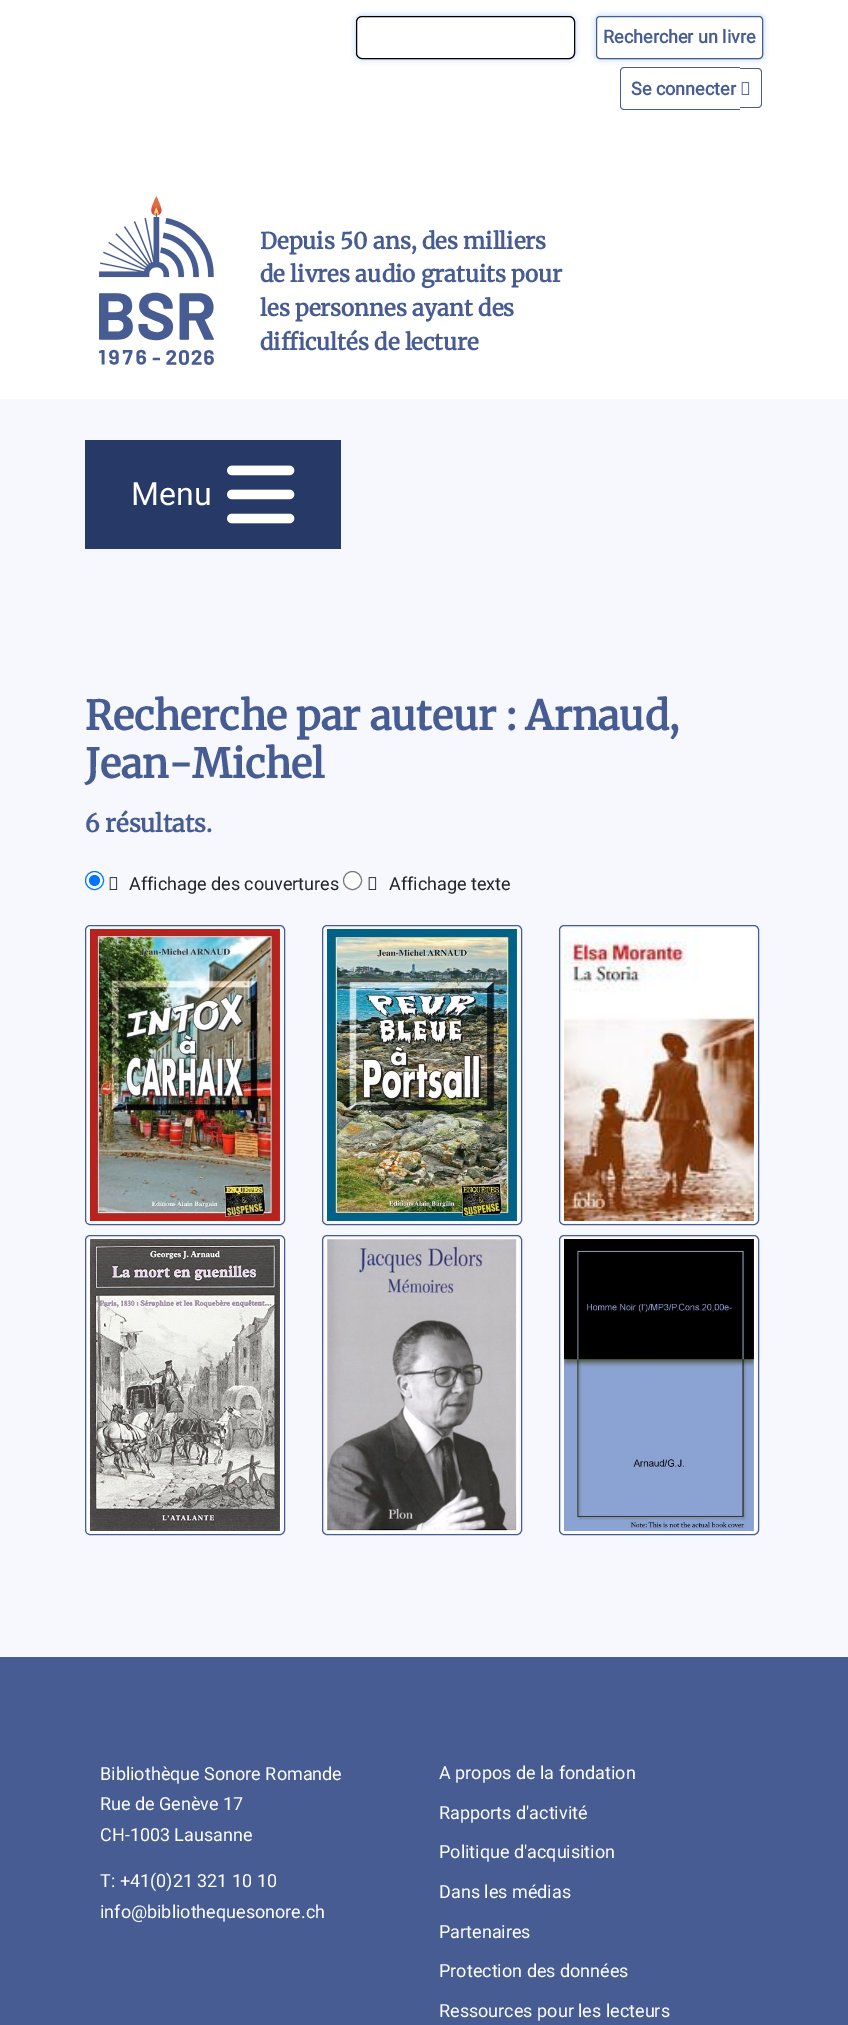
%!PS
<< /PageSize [848 2025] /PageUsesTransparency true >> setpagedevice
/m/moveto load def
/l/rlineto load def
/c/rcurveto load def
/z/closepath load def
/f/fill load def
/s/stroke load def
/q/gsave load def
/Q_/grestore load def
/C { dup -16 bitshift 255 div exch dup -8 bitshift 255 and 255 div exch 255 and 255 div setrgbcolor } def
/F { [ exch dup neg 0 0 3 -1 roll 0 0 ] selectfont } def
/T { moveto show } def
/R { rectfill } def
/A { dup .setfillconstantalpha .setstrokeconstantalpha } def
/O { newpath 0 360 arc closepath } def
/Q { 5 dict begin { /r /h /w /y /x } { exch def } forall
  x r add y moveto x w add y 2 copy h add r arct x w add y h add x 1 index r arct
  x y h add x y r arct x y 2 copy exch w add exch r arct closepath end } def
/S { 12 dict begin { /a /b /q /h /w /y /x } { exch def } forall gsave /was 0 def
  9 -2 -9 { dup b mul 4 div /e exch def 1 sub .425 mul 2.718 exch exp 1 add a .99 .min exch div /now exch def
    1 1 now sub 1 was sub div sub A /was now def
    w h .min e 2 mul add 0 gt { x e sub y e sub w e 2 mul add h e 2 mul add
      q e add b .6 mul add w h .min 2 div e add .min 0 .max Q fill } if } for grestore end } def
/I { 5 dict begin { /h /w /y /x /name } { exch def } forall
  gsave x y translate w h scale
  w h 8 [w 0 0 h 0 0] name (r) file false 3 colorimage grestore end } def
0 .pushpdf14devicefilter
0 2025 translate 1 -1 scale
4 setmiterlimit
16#F6F8FD C
0 0 848 2025 R
16#FFFFFF C
0 0 848 399 R
16#ABCAF5 C
356 16 219 43 6 3 1 S
16#FFFFFF C
356.5 16.5 218 42 5.5 Q q f Q_
16#000000 C
s
16#465C92 C
624 67 m 116 0 l 0 43 l -116 0 l -2 0 -4 -2 -4 -4 c 0 -35 l 0 -2 2 -4 4 -4 c z 624 68 m 116 0 l 0 41 l -116 0 l -2 0 -3 -1 -3 -3 c 0 -35 l 0 -2 1 -3 3 -3 c z eofill
740 68 m 18 0 l 2 0 4 2 4 4 c 0 32 l 0 2 -2 4 -4 4 c -18 0 l z 740 69 m 18 0 l 2 0 3 1 3 3 c 0 32 l 0 2 -1 3 -3 3 c -18 0 l z eofill
16#ABCAF5 C
596 16 167 43 4 3 1 S
16#FFFFFF C
596.5 16.5 166 42 3.5 Q q f Q_
16#465C92 C
s
/Roboto-Bold 18 F
(Rechercher un livre) 603 43 T
(Se connecter) 631 95 T
(1.rgb) 741 82 9 13 I
(2.rgb) 99 196 115 169 I
/Merriweather-Bold 22.4 F
(Depuis 50 ans, des milliers) 260 249 T
(de livres audio gratuits pour) 260 282 T
(les personnes ayant des) 260 316 T
(difficultés de lecture) 260 350 T
16#263967 C
85 440 256 109 R
/Roboto-Regular 32 F
16#FFFFFF C
(Menu) 131 505 T
(3.rgb) 227 465 68 59 I
/Merriweather-Bold 40 F
16#465C92 C
(Recherche par auteur : Arnaud,) 85 730 T
(Jean-Michel) 85 778 T
/Merriweather-Bold 24 F
(6 résultats.) 85 832 T
16#FFFFFF C
94.5 880.5 9 O q f Q_
16#0075FF C
s
94.5 880.5 5.5 O f
(4.rgb) 109 877 9 13 I
/Roboto-Regular 18 F
16#212529 C
(Affichage des couvertures) 129 890 T
16#FFFFFF C
352.5 880.5 9 O q f Q_
16#767676 C
s
(4.rgb) 368 877 9 13 I
16#212529 C
(Affichage texte) 389 890 T
16#465C92 C
85.5 925.5 199 299 4.5 Q s
0.99 A
16#FFFFFF C
87 928 194 295 R
1 A
(5.rgb) 89 929 191 292 I
16#465C92 C
322.5 925.5 199 299 4.5 Q s
16#FFFFFF C
325 928 194 295 R
(6.rgb) 326 929 191 292 I
16#465C92 C
559.5 925.5 199 299 4.5 Q s
16#FFFFFF C
562 928 194 295 R
(7.rgb) 563 929 191 292 I
16#465C92 C
85.5 1235.5 199 299 4.5 Q s
0.99 A
16#FFFFFF C
87 1238 194 295 R
1 A
(8.rgb) 89 1239 191 292 I
16#465C92 C
322.5 1235.5 199 299 4.5 Q s
16#FFFFFF C
325 1238 194 295 R
(9.rgb) 327 1239 190 292 I
16#465C92 C
559.5 1235.5 199 299 4.5 Q s
16#FFFFFF C
562 1238 194 295 R
(10.rgb) 563 1239 191 292 I
16#465C92 C
0 1657 848 368 R
16#FFFFFF C
(Bibliothèque Sonore Romande) 100 1780 T
(Rue de Genève 17) 100 1810 T
(CH-1003 Lausanne) 100 1841 T
(T: +41\(0\)21 321 10 10) 100 1887 T
(info@bibliothequesonore.ch) 100 1918 T
(A propos de la fondation) 439 1779 T
(Rapports d'activité) 439 1819 T
(Politique d'acquisition) 439 1858 T
(Dans les médias) 439 1898 T
(Partenaires) 439 1938 T
(Protection des données) 439 1977 T
(Ressources pour les lecteurs) 439 2017 T
.poppdf14devicefilter showpage
